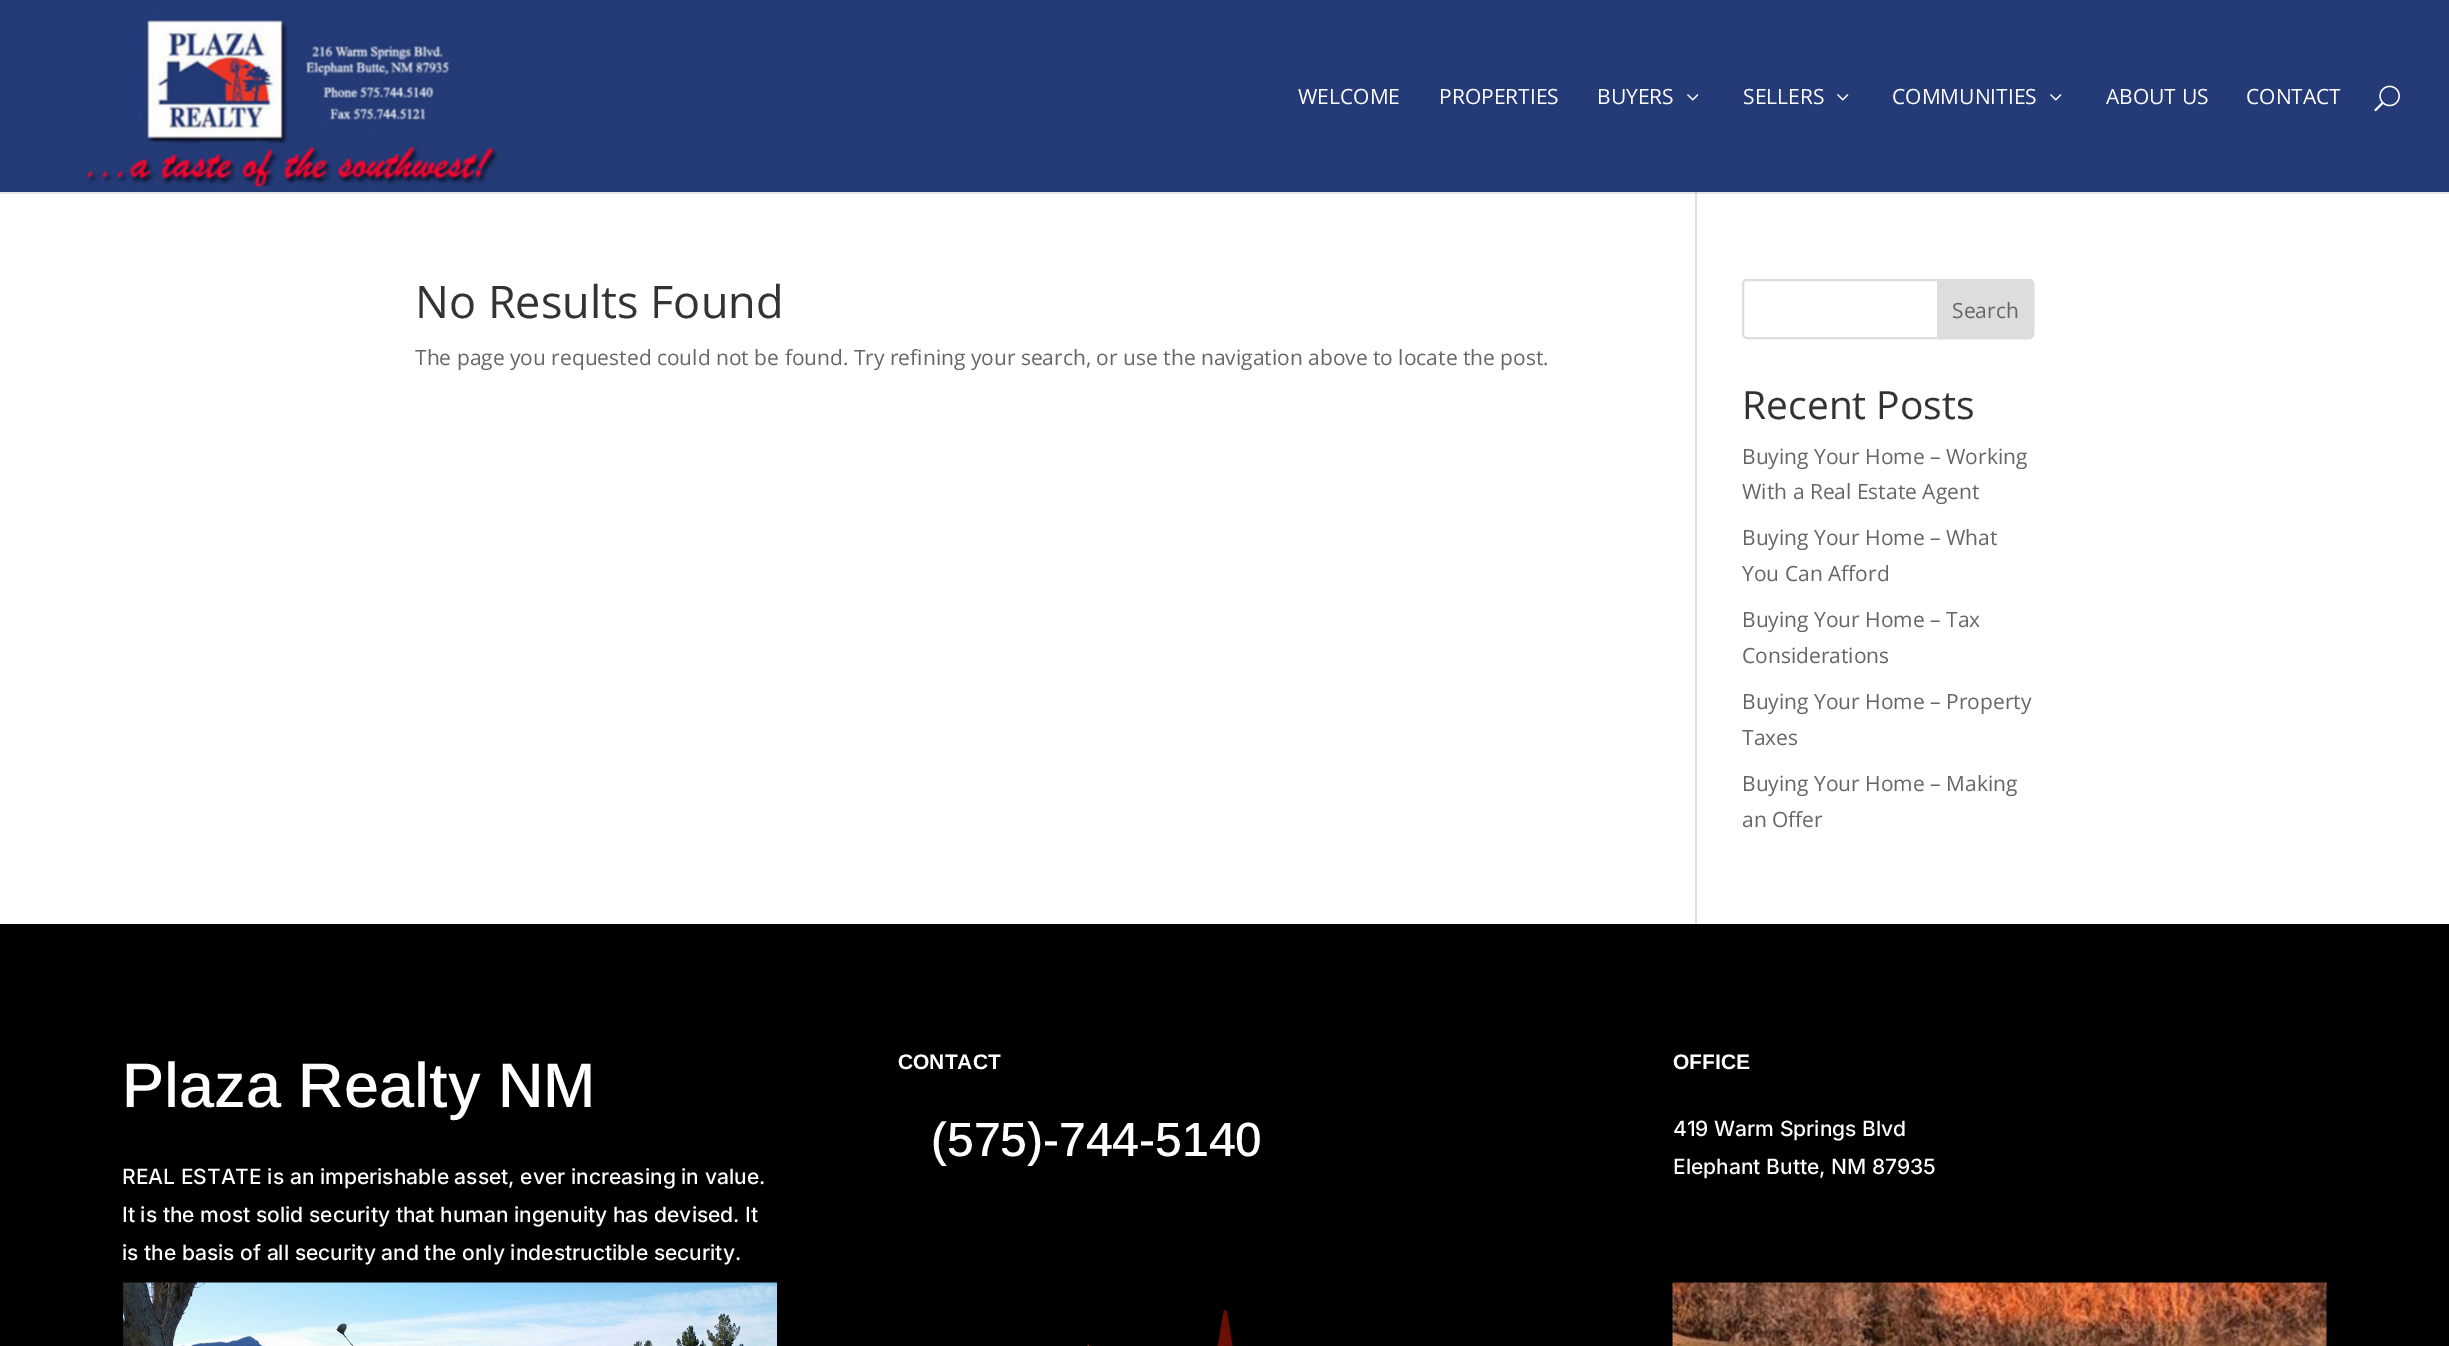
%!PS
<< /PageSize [2449 1346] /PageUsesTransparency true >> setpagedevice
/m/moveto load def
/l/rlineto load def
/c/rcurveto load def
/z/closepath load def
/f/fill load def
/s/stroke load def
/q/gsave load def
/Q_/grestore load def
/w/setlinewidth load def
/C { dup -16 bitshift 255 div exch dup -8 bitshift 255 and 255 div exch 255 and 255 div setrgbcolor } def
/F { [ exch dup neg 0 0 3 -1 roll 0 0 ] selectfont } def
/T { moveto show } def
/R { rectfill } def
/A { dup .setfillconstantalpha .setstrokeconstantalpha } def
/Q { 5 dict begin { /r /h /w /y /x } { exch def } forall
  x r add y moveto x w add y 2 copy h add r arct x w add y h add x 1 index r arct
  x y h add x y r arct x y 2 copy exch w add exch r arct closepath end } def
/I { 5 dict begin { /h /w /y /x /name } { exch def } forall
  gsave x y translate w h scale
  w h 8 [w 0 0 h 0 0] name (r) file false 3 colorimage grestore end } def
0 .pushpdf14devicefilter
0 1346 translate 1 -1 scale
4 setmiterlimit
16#FFFFFF C
0 0 2449 1346 R
16#E2E2E2 C
1695 192 2 732 R
0.1 A
16#000000 C
0 192 m 0 2 l 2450 0 l 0 -192 l 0 190 l z f
1 A
16#253B77 C
0 0 2449 192 R
(1.rgb) 85 14 436 173 I
/OpenSans-Regular 21 F
16#FFFFFF C
(WELCOME) 1298 104 T
(PROPERTIES) 1439 104 T
(BUYERS) 1597 104 T
(2.rgb) 1687 94 12 7 I
(SELLERS) 1743 104 T
(2.rgb) 1837 94 12 7 I
(COMMUNITIES) 1892 104 T
(2.rgb) 2050 94 12 7 I
(ABOUT US) 2106 104 T
(CONTACT) 2246 104 T
(3.rgb) 2374 85 26 27 I
/OpenSans-Regular 45 F
16#333333 C
(No Results Found) 415 318 T
/OpenSans-Regular 21 F
16#666666 C
(The page you requested could not be found. Try refining your search, or use the navigation above to locate the post.) 415 365 T
16#DDDDDD C
2 w
1743 280 290 58 4 Q s
1938 280 m 91 0 l 2 0 4 2 4 4 c 0 50 l 0 2 -2 4 -4 4 c -91 0 l z q f Q_
s
16#666666 C
(Search) 1952 318 T
/OpenSans-Regular 39 F
16#333333 C
(Recent Posts) 1742 419 T
/OpenSans-Regular 21 F
16#666666 C
(Buying Your Home – Working) 1742 464 T
(With a Real Estate Agent) 1742 499 T
(Buying Your Home – What) 1742 545 T
(You Can Afford) 1742 581 T
(Buying Your Home – Tax) 1742 627 T
(Considerations) 1742 663 T
(Buying Your Home – Property) 1742 709 T
(Taxes) 1742 745 T
(Buying Your Home – Making) 1742 791 T
(an Offer) 1742 827 T
16#000000 C
0 924 2449 422 R
/Arimo-Medium 63 F
16#FFFFFF C
(Plaza Realty NM) 122 1107 T
/Inter-Medium 21 F
(REAL ESTATE is an imperishable asset, ever increasing in value.) 122 1184 T
(It is the most solid security that human ingenuity has devised. It) 122 1222 T
(is the basis of all security and the only indestructible security.) 122 1260 T
/Arimo-Bold 21 F
(CONTACT) 898 1069 T
/Arimo-Medium 48 F
(\(575\)-744-5140) 931 1156 T
/Arimo-Bold 21 F
(OFFICE) 1673 1069 T
/Inter-Medium 21 F
(419 Warm Springs Blvd) 1673 1136 T
(Elephant Butte, NM 87935) 1673 1174 T
(4.rgb) 123 1282 654 64 I
(5.rgb) 1087 1310 146 36 I
(6.rgb) 1672 1282 655 64 I
.poppdf14devicefilter showpage
